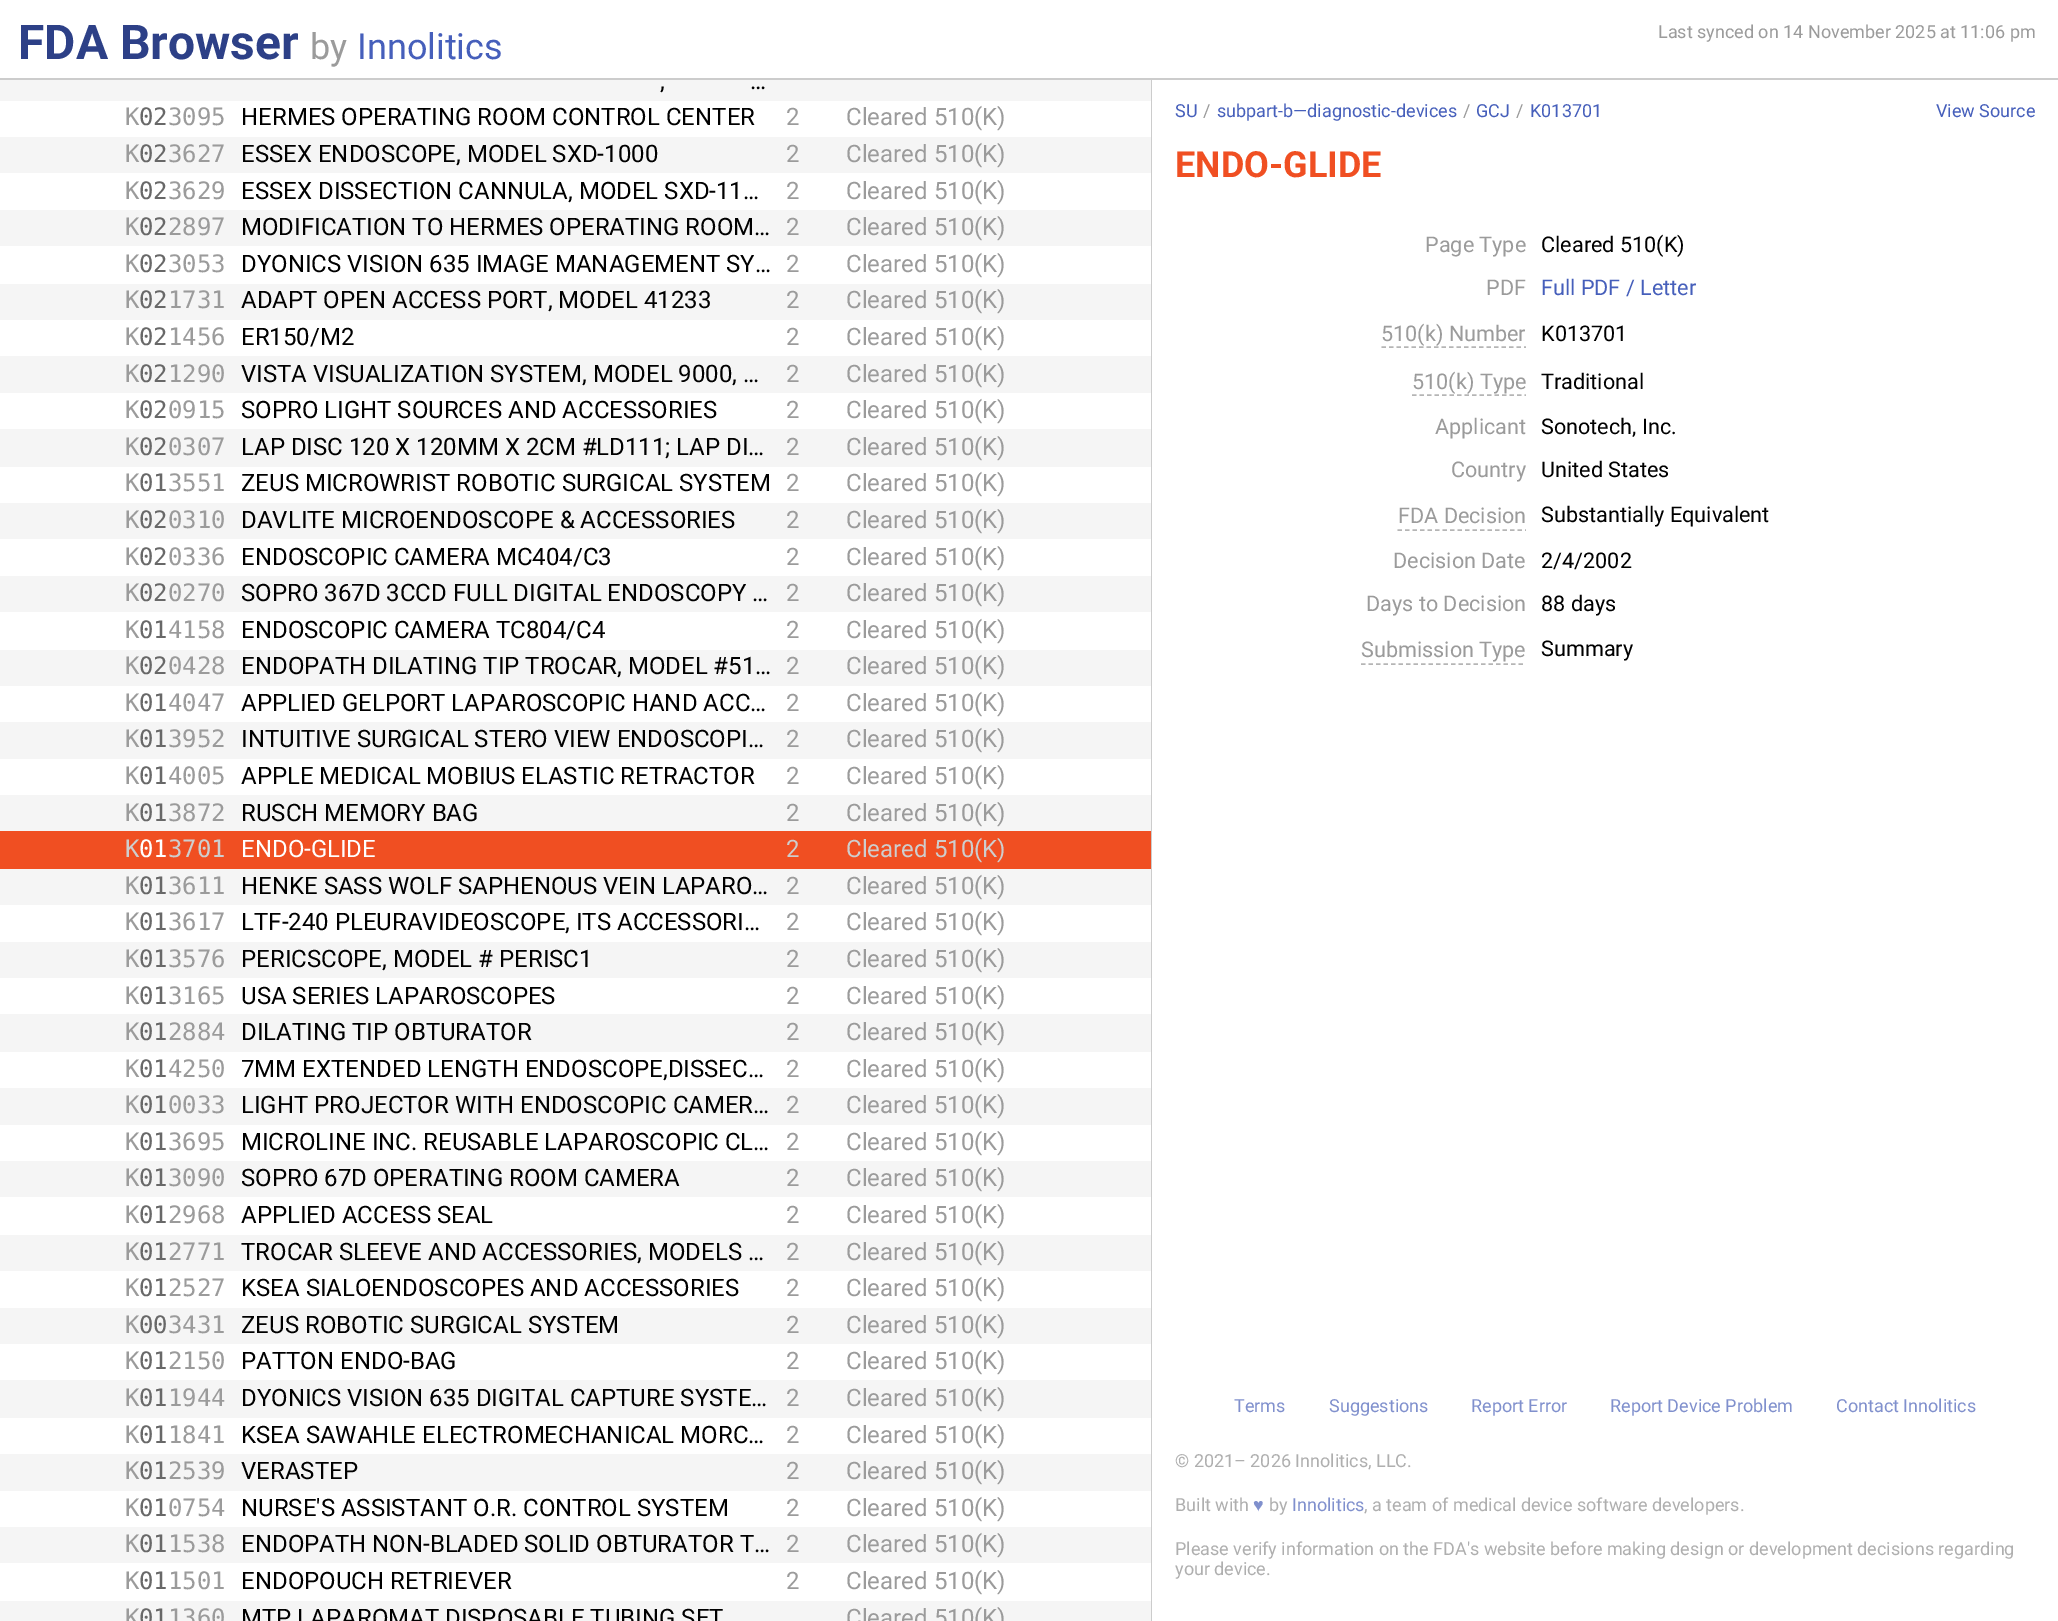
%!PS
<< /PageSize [2058 1621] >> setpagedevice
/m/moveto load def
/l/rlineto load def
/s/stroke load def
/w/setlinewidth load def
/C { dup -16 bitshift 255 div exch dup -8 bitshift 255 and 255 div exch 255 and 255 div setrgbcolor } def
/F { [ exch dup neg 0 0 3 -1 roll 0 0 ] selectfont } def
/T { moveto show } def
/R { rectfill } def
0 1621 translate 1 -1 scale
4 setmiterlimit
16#FFFFFF C
0 0 2058 1621 R
16#CCCCCC C
0 78 2058 2 R
/Roboto-Bold 48 F
16#2D4087 C
(FDA Browser) 18 59 T
/Roboto-Regular 36 F
16#9B9B9B C
(by) 310 59 T
16#465FBB C
(Innolitics) 357 59 T
16#CCCCCC C
1151 80 1 1541 R
16#F5F5F5 C
0 80 1151 1541 R
/Roboto-Regular 24 F
16#000000 C
(,) 660 89 T
(…) 750 89 T
16#FFFFFF C
0 101 1151 36 R
/DejaVuSansMono-Regular 24 F
16#9B9B9B C
(K) 125 125 T
16#686868 C
(02) 139 125 T
16#9B9B9B C
(3095) 168 125 T
/Roboto-Regular 24 F
16#000000 C
(HERMES OPERATING ROOM CONTROL CENTER) 241 125 T
16#9B9B9B C
(2) 786 125 T
(Cleared 510\(K\)) 846 125 T
/DejaVuSansMono-Regular 24 F
(K) 125 162 T
16#686868 C
(02) 139 162 T
16#9B9B9B C
(3627) 168 162 T
/Roboto-Regular 24 F
16#000000 C
(ESSEX ENDOSCOPE, MODEL SXD-1000) 241 162 T
16#9B9B9B C
(2) 786 162 T
(Cleared 510\(K\)) 846 162 T
16#FFFFFF C
0 173 1151 37 R
/DejaVuSansMono-Regular 24 F
16#9B9B9B C
(K) 125 199 T
16#686868 C
(02) 139 199 T
16#9B9B9B C
(3629) 168 199 T
/Roboto-Regular 24 F
16#000000 C
(ESSEX DISSECTION CANNULA, MODEL SXD-11…) 241 199 T
16#9B9B9B C
(2) 786 199 T
(Cleared 510\(K\)) 846 199 T
/DejaVuSansMono-Regular 24 F
(K) 125 235 T
16#686868 C
(02) 139 235 T
16#9B9B9B C
(2897) 168 235 T
/Roboto-Regular 24 F
16#000000 C
(MODIFICATION TO HERMES OPERATING ROOM…) 241 235 T
16#9B9B9B C
(2) 786 235 T
(Cleared 510\(K\)) 846 235 T
16#FFFFFF C
0 246 1151 38 R
/DejaVuSansMono-Regular 24 F
16#9B9B9B C
(K) 125 272 T
16#686868 C
(02) 139 272 T
16#9B9B9B C
(3053) 168 272 T
/Roboto-Regular 24 F
16#000000 C
(DYONICS VISION 635 IMAGE MANAGEMENT SY…) 241 272 T
16#9B9B9B C
(2) 786 272 T
(Cleared 510\(K\)) 846 272 T
/DejaVuSansMono-Regular 24 F
(K) 125 308 T
16#686868 C
(02) 139 308 T
16#9B9B9B C
(1731) 168 308 T
/Roboto-Regular 24 F
16#000000 C
(ADAPT OPEN ACCESS PORT, MODEL 41233) 241 308 T
16#9B9B9B C
(2) 786 308 T
(Cleared 510\(K\)) 846 308 T
16#FFFFFF C
0 320 1151 36 R
/DejaVuSansMono-Regular 24 F
16#9B9B9B C
(K) 125 345 T
16#686868 C
(02) 139 345 T
16#9B9B9B C
(1456) 168 345 T
/Roboto-Regular 24 F
16#000000 C
(ER150/M2) 241 345 T
16#9B9B9B C
(2) 786 345 T
(Cleared 510\(K\)) 846 345 T
/DejaVuSansMono-Regular 24 F
(K) 125 382 T
16#686868 C
(02) 139 382 T
16#9B9B9B C
(1290) 168 382 T
/Roboto-Regular 24 F
16#000000 C
(VISTA VISUALIZATION SYSTEM, MODEL 9000, …) 241 382 T
16#9B9B9B C
(2) 786 382 T
(Cleared 510\(K\)) 846 382 T
16#FFFFFF C
0 393 1151 36 R
/DejaVuSansMono-Regular 24 F
16#9B9B9B C
(K) 125 418 T
16#686868 C
(02) 139 418 T
16#9B9B9B C
(0915) 168 418 T
/Roboto-Regular 24 F
16#000000 C
(SOPRO LIGHT SOURCES AND ACCESSORIES) 241 418 T
16#9B9B9B C
(2) 786 418 T
(Cleared 510\(K\)) 846 418 T
/DejaVuSansMono-Regular 24 F
(K) 125 455 T
16#686868 C
(02) 139 455 T
16#9B9B9B C
(0307) 168 455 T
/Roboto-Regular 24 F
16#000000 C
(LAP DISC 120 X 120MM X 2CM #LD111; LAP DI…) 241 455 T
16#9B9B9B C
(2) 786 455 T
(Cleared 510\(K\)) 846 455 T
16#FFFFFF C
0 467 1151 36 R
/DejaVuSansMono-Regular 24 F
16#9B9B9B C
(K) 125 491 T
16#686868 C
(01) 139 491 T
16#9B9B9B C
(3551) 168 491 T
/Roboto-Regular 24 F
16#000000 C
(ZEUS MICROWRIST ROBOTIC SURGICAL SYSTEM) 241 491 T
16#9B9B9B C
(2) 786 491 T
(Cleared 510\(K\)) 846 491 T
/DejaVuSansMono-Regular 24 F
(K) 125 528 T
16#686868 C
(02) 139 528 T
16#9B9B9B C
(0310) 168 528 T
/Roboto-Regular 24 F
16#000000 C
(DAVLITE MICROENDOSCOPE & ACCESSORIES) 241 528 T
16#9B9B9B C
(2) 786 528 T
(Cleared 510\(K\)) 846 528 T
16#FFFFFF C
0 539 1151 37 R
/DejaVuSansMono-Regular 24 F
16#9B9B9B C
(K) 125 565 T
16#686868 C
(02) 139 565 T
16#9B9B9B C
(0336) 168 565 T
/Roboto-Regular 24 F
16#000000 C
(ENDOSCOPIC CAMERA MC404/C3) 241 565 T
16#9B9B9B C
(2) 786 565 T
(Cleared 510\(K\)) 846 565 T
/DejaVuSansMono-Regular 24 F
(K) 125 601 T
16#686868 C
(02) 139 601 T
16#9B9B9B C
(0270) 168 601 T
/Roboto-Regular 24 F
16#000000 C
(SOPRO 367D 3CCD FULL DIGITAL ENDOSCOPY …) 241 601 T
16#9B9B9B C
(2) 786 601 T
(Cleared 510\(K\)) 846 601 T
16#FFFFFF C
0 612 1151 38 R
/DejaVuSansMono-Regular 24 F
16#9B9B9B C
(K) 125 638 T
16#686868 C
(01) 139 638 T
16#9B9B9B C
(4158) 168 638 T
/Roboto-Regular 24 F
16#000000 C
(ENDOSCOPIC CAMERA TC804/C4) 241 638 T
16#9B9B9B C
(2) 786 638 T
(Cleared 510\(K\)) 846 638 T
/DejaVuSansMono-Regular 24 F
(K) 125 674 T
16#686868 C
(02) 139 674 T
16#9B9B9B C
(0428) 168 674 T
/Roboto-Regular 24 F
16#000000 C
(ENDOPATH DILATING TIP TROCAR, MODEL #51…) 241 674 T
16#9B9B9B C
(2) 786 674 T
(Cleared 510\(K\)) 846 674 T
16#FFFFFF C
0 686 1151 36 R
/DejaVuSansMono-Regular 24 F
16#9B9B9B C
(K) 125 711 T
16#686868 C
(01) 139 711 T
16#9B9B9B C
(4047) 168 711 T
/Roboto-Regular 24 F
16#000000 C
(APPLIED GELPORT LAPAROSCOPIC HAND ACC…) 241 711 T
16#9B9B9B C
(2) 786 711 T
(Cleared 510\(K\)) 846 711 T
/DejaVuSansMono-Regular 24 F
(K) 125 747 T
16#686868 C
(01) 139 747 T
16#9B9B9B C
(3952) 168 747 T
/Roboto-Regular 24 F
16#000000 C
(INTUITIVE SURGICAL STERO VIEW ENDOSCOPI…) 241 747 T
16#9B9B9B C
(2) 786 747 T
(Cleared 510\(K\)) 846 747 T
16#FFFFFF C
0 759 1151 36 R
/DejaVuSansMono-Regular 24 F
16#9B9B9B C
(K) 125 784 T
16#686868 C
(01) 139 784 T
16#9B9B9B C
(4005) 168 784 T
/Roboto-Regular 24 F
16#000000 C
(APPLE MEDICAL MOBIUS ELASTIC RETRACTOR) 241 784 T
16#9B9B9B C
(2) 786 784 T
(Cleared 510\(K\)) 846 784 T
/DejaVuSansMono-Regular 24 F
(K) 125 821 T
16#686868 C
(01) 139 821 T
16#9B9B9B C
(3872) 168 821 T
/Roboto-Regular 24 F
16#000000 C
(RUSCH MEMORY BAG) 241 821 T
16#9B9B9B C
(2) 786 821 T
(Cleared 510\(K\)) 846 821 T
16#F04F22 C
0 831 1151 38 R
/DejaVuSansMono-Regular 24 F
16#CECECE C
(K) 125 857 T
16#FFFFFF C
(01) 139 857 T
16#CECECE C
(3701) 168 857 T
/Roboto-Regular 24 F
16#FFFFFF C
(ENDO-GLIDE) 241 857 T
16#CECECE C
(2) 786 857 T
(Cleared 510\(K\)) 846 857 T
/DejaVuSansMono-Regular 24 F
16#9B9B9B C
(K) 125 894 T
16#686868 C
(01) 139 894 T
16#9B9B9B C
(3611) 168 894 T
/Roboto-Regular 24 F
16#000000 C
(HENKE SASS WOLF SAPHENOUS VEIN LAPARO…) 241 894 T
16#9B9B9B C
(2) 786 894 T
(Cleared 510\(K\)) 846 894 T
16#FFFFFF C
0 905 1151 37 R
/DejaVuSansMono-Regular 24 F
16#9B9B9B C
(K) 125 930 T
16#686868 C
(01) 139 930 T
16#9B9B9B C
(3617) 168 930 T
/Roboto-Regular 24 F
16#000000 C
(LTF-240 PLEURAVIDEOSCOPE, ITS ACCESSORI…) 241 930 T
16#9B9B9B C
(2) 786 930 T
(Cleared 510\(K\)) 846 930 T
/DejaVuSansMono-Regular 24 F
(K) 125 967 T
16#686868 C
(01) 139 967 T
16#9B9B9B C
(3576) 168 967 T
/Roboto-Regular 24 F
16#000000 C
(PERICSCOPE, MODEL # PERISC1) 241 967 T
16#9B9B9B C
(2) 786 967 T
(Cleared 510\(K\)) 846 967 T
16#FFFFFF C
0 978 1151 36 R
/DejaVuSansMono-Regular 24 F
16#9B9B9B C
(K) 125 1004 T
16#686868 C
(01) 139 1004 T
16#9B9B9B C
(3165) 168 1004 T
/Roboto-Regular 24 F
16#000000 C
(USA SERIES LAPAROSCOPES) 241 1004 T
16#9B9B9B C
(2) 786 1004 T
(Cleared 510\(K\)) 846 1004 T
/DejaVuSansMono-Regular 24 F
(K) 125 1040 T
16#686868 C
(01) 139 1040 T
16#9B9B9B C
(2884) 168 1040 T
/Roboto-Regular 24 F
16#000000 C
(DILATING TIP OBTURATOR) 241 1040 T
16#9B9B9B C
(2) 786 1040 T
(Cleared 510\(K\)) 846 1040 T
16#FFFFFF C
0 1052 1151 36 R
/DejaVuSansMono-Regular 24 F
16#9B9B9B C
(K) 125 1077 T
16#686868 C
(01) 139 1077 T
16#9B9B9B C
(4250) 168 1077 T
/Roboto-Regular 24 F
16#000000 C
(7MM EXTENDED LENGTH ENDOSCOPE,DISSEC…) 241 1077 T
16#9B9B9B C
(2) 786 1077 T
(Cleared 510\(K\)) 846 1077 T
/DejaVuSansMono-Regular 24 F
(K) 125 1113 T
16#686868 C
(01) 139 1113 T
16#9B9B9B C
(0033) 168 1113 T
/Roboto-Regular 24 F
16#000000 C
(LIGHT PROJECTOR WITH ENDOSCOPIC CAMER…) 241 1113 T
16#9B9B9B C
(2) 786 1113 T
(Cleared 510\(K\)) 846 1113 T
16#FFFFFF C
0 1125 1151 36 R
/DejaVuSansMono-Regular 24 F
16#9B9B9B C
(K) 125 1150 T
16#686868 C
(01) 139 1150 T
16#9B9B9B C
(3695) 168 1150 T
/Roboto-Regular 24 F
16#000000 C
(MICROLINE INC. REUSABLE LAPAROSCOPIC CL…) 241 1150 T
16#9B9B9B C
(2) 786 1150 T
(Cleared 510\(K\)) 846 1150 T
/DejaVuSansMono-Regular 24 F
(K) 125 1186 T
16#686868 C
(01) 139 1186 T
16#9B9B9B C
(3090) 168 1186 T
/Roboto-Regular 24 F
16#000000 C
(SOPRO 67D OPERATING ROOM CAMERA) 241 1186 T
16#9B9B9B C
(2) 786 1186 T
(Cleared 510\(K\)) 846 1186 T
16#FFFFFF C
0 1197 1151 38 R
/DejaVuSansMono-Regular 24 F
16#9B9B9B C
(K) 125 1223 T
16#686868 C
(01) 139 1223 T
16#9B9B9B C
(2968) 168 1223 T
/Roboto-Regular 24 F
16#000000 C
(APPLIED ACCESS SEAL) 241 1223 T
16#9B9B9B C
(2) 786 1223 T
(Cleared 510\(K\)) 846 1223 T
/DejaVuSansMono-Regular 24 F
(K) 125 1260 T
16#686868 C
(01) 139 1260 T
16#9B9B9B C
(2771) 168 1260 T
/Roboto-Regular 24 F
16#000000 C
(TROCAR SLEEVE AND ACCESSORIES, MODELS …) 241 1260 T
16#9B9B9B C
(2) 786 1260 T
(Cleared 510\(K\)) 846 1260 T
16#FFFFFF C
0 1271 1151 37 R
/DejaVuSansMono-Regular 24 F
16#9B9B9B C
(K) 125 1296 T
16#686868 C
(01) 139 1296 T
16#9B9B9B C
(2527) 168 1296 T
/Roboto-Regular 24 F
16#000000 C
(KSEA SIALOENDOSCOPES AND ACCESSORIES) 241 1296 T
16#9B9B9B C
(2) 786 1296 T
(Cleared 510\(K\)) 846 1296 T
/DejaVuSansMono-Regular 24 F
(K) 125 1333 T
16#686868 C
(00) 139 1333 T
16#9B9B9B C
(3431) 168 1333 T
/Roboto-Regular 24 F
16#000000 C
(ZEUS ROBOTIC SURGICAL SYSTEM) 241 1333 T
16#9B9B9B C
(2) 786 1333 T
(Cleared 510\(K\)) 846 1333 T
16#FFFFFF C
0 1344 1151 36 R
/DejaVuSansMono-Regular 24 F
16#9B9B9B C
(K) 125 1369 T
16#686868 C
(01) 139 1369 T
16#9B9B9B C
(2150) 168 1369 T
/Roboto-Regular 24 F
16#000000 C
(PATTON ENDO-BAG) 241 1369 T
16#9B9B9B C
(2) 786 1369 T
(Cleared 510\(K\)) 846 1369 T
/DejaVuSansMono-Regular 24 F
(K) 125 1406 T
16#686868 C
(01) 139 1406 T
16#9B9B9B C
(1944) 168 1406 T
/Roboto-Regular 24 F
16#000000 C
(DYONICS VISION 635 DIGITAL CAPTURE SYSTE…) 241 1406 T
16#9B9B9B C
(2) 786 1406 T
(Cleared 510\(K\)) 846 1406 T
16#FFFFFF C
0 1418 1151 36 R
/DejaVuSansMono-Regular 24 F
16#9B9B9B C
(K) 125 1443 T
16#686868 C
(01) 139 1443 T
16#9B9B9B C
(1841) 168 1443 T
/Roboto-Regular 24 F
16#000000 C
(KSEA SAWAHLE ELECTROMECHANICAL MORC…) 241 1443 T
16#9B9B9B C
(2) 786 1443 T
(Cleared 510\(K\)) 846 1443 T
/DejaVuSansMono-Regular 24 F
(K) 125 1479 T
16#686868 C
(01) 139 1479 T
16#9B9B9B C
(2539) 168 1479 T
/Roboto-Regular 24 F
16#000000 C
(VERASTEP) 241 1479 T
16#9B9B9B C
(2) 786 1479 T
(Cleared 510\(K\)) 846 1479 T
16#FFFFFF C
0 1491 1151 36 R
/DejaVuSansMono-Regular 24 F
16#9B9B9B C
(K) 125 1516 T
16#686868 C
(01) 139 1516 T
16#9B9B9B C
(0754) 168 1516 T
/Roboto-Regular 24 F
16#000000 C
(NURSE'S ASSISTANT O.R. CONTROL SYSTEM) 241 1516 T
16#9B9B9B C
(2) 786 1516 T
(Cleared 510\(K\)) 846 1516 T
/DejaVuSansMono-Regular 24 F
(K) 125 1552 T
16#686868 C
(01) 139 1552 T
16#9B9B9B C
(1538) 168 1552 T
/Roboto-Regular 24 F
16#000000 C
(ENDOPATH NON-BLADED SOLID OBTURATOR T…) 241 1552 T
16#9B9B9B C
(2) 786 1552 T
(Cleared 510\(K\)) 846 1552 T
16#FFFFFF C
0 1563 1151 38 R
/DejaVuSansMono-Regular 24 F
16#9B9B9B C
(K) 125 1589 T
16#686868 C
(01) 139 1589 T
16#9B9B9B C
(1501) 168 1589 T
/Roboto-Regular 24 F
16#000000 C
(ENDOPOUCH RETRIEVER) 241 1589 T
16#9B9B9B C
(2) 786 1589 T
(Cleared 510\(K\)) 846 1589 T
/DejaVuSansMono-Regular 24 F
(K) 125 1626 T
16#686868 C
(01) 139 1626 T
16#9B9B9B C
(1360) 168 1626 T
/Roboto-Regular 24 F
16#000000 C
(MTP LAPAROMAT DISPOSABLE TUBING SET) 241 1626 T
16#9B9B9B C
(Cleared 510\(K\)) 846 1626 T
/Roboto-Regular 18 F
(Last synced on 14 November 2025 at 11:06 pm) 1658 38 T
16#465FBB C
(SU) 1175 117 T
16#9B9B9B C
(/) 1203 117 T
16#465FBB C
(subpart-b—diagnostic-devices) 1217 117 T
16#9B9B9B C
(/) 1463 117 T
16#465FBB C
(GCJ) 1476 117 T
16#9B9B9B C
(/) 1516 117 T
16#465FBB C
(K013701) 1530 117 T
(View Source) 1936 117 T
/Roboto-Bold 36 F
16#F04F22 C
(ENDO-GLIDE) 1175 177 T
/Roboto-Regular 21.6 F
16#9B9B9B C
(Page Type) 1425 252 T
16#000000 C
(Cleared 510\(K\)) 1541 252 T
16#9B9B9B C
(PDF) 1486 295 T
16#465FBB C
(Full PDF / Letter) 1541 295 T
16#9B9B9B C
(510\(k\) Number) 1381 341 T
16#B5B5B5 C
1.5 w
[4.5 3] 0 setdash
1381.5 347 m 144.5 0 l s
16#000000 C
(K013701) 1541 341 T
16#9B9B9B C
(510\(k\) Type) 1412 389 T
16#B5B5B5 C
1412 395 m 114 0 l s
16#000000 C
(Traditional) 1541 389 T
16#9B9B9B C
(Applicant) 1435 434 T
16#000000 C
(Sonotech, Inc.) 1541 434 T
16#9B9B9B C
(Country) 1451 477 T
16#000000 C
(United States) 1541 477 T
16#9B9B9B C
(FDA Decision) 1398 523 T
16#B5B5B5 C
1397.5 530 m 128.5 0 l s
16#000000 C
(Substantially Equivalent) 1541 522 T
16#9B9B9B C
(Decision Date) 1393 568 T
16#000000 C
(2/4/2002) 1541 568 T
16#9B9B9B C
(Days to Decision) 1366 611 T
16#000000 C
(88 days) 1541 611 T
16#9B9B9B C
(Submission Type) 1361 657 T
16#B5B5B5 C
1361 664 m 165 0 l s
16#000000 C
(Summary) 1541 656 T
/Roboto-Regular 18 F
16#8090CD C
(Terms) 1234 1412 T
(Suggestions) 1329 1412 T
(Report Error) 1471 1412 T
(Report Device Problem) 1610 1412 T
(Contact Innolitics) 1836 1412 T
16#AFAFAF C
(© 2021– 2026 Innolitics, LLC.) 1175 1467 T
(Built with) 1175 1511 T
/LiberationSans-Regular 18 F
16#8090CD C
(♥) 1253 1511 T
/Roboto-Regular 18 F
16#AFAFAF C
(by) 1269 1511 T
16#8090CD C
(Innolitics) 1292 1511 T
16#AFAFAF C
(, a team of medical device software developers.) 1364 1511 T
(Please verify information on the FDA's website before making design or development decisions regarding) 1175 1555 T
(your device.) 1175 1575 T
showpage
